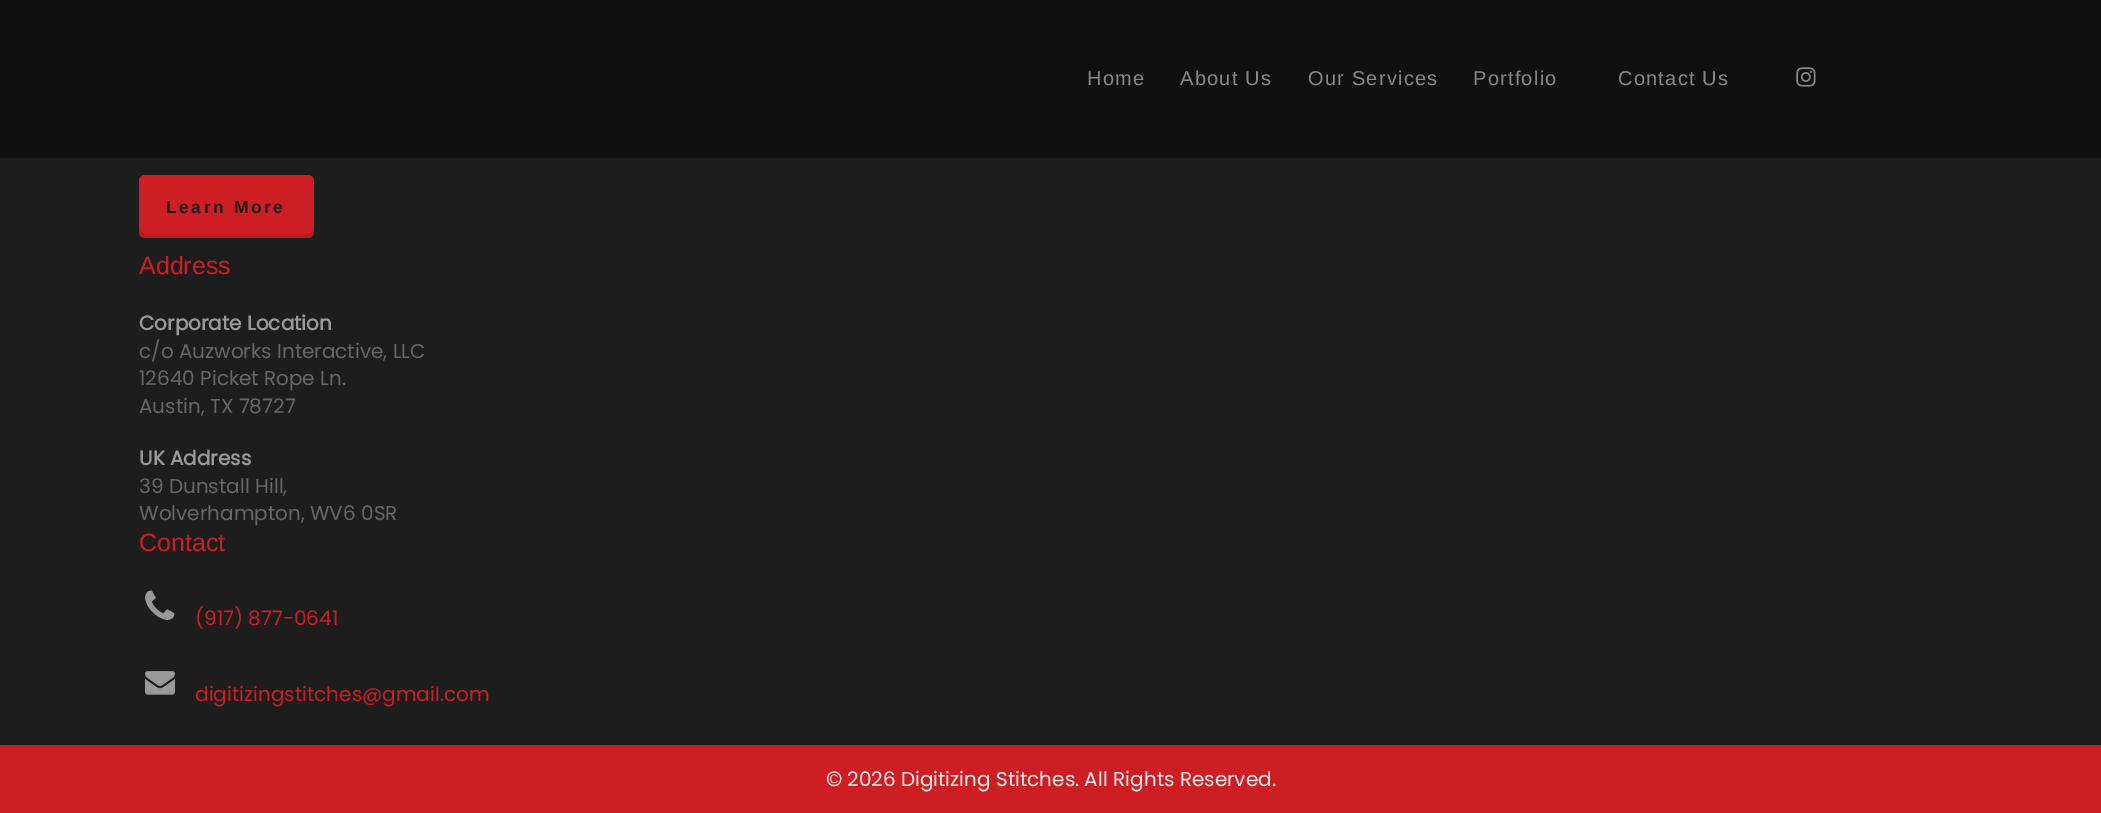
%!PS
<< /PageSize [2101 813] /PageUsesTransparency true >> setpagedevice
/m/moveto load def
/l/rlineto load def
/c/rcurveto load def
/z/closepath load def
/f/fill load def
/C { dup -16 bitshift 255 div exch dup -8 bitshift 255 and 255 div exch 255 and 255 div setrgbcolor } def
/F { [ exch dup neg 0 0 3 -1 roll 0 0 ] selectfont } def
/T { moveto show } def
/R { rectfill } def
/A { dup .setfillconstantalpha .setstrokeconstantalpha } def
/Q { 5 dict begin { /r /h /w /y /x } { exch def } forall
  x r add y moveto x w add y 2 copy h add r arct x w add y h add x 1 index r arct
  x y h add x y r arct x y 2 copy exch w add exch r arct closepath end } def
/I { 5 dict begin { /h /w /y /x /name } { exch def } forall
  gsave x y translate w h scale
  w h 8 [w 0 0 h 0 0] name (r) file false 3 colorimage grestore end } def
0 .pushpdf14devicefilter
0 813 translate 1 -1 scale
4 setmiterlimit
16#1D1D1D C
0 0 2101 813 R
16#101010 C
0 0 2101 158 R
/LiberationSans-Regular 20 F
16#888888 C
1087 85 m 1.25 0 (Home) ashow
1180 85 m 1.25 0 (About Us) ashow
1308 85 m 1.25 0 (Our Services) ashow
1473 85 m 1.25 0 (Portfolio) ashow
1618 85 m 1.25 0 (Contact Us) ashow
(1.rgb) 1796 67 20 20 I
16#CC1E23 C
139 175 175 63 6 Q f
0.1 A
16#000000 C
139 228 m 0 4 l 0 3 3 6 6 6 c 163 0 l 3 0 6 -3 6 -6 c 0 -4 l 0 3 -3 6 -6 6 c -163 0 l -3 0 -6 -3 -6 -6 c z f
/LiberationSans-Bold 17.5 F
1 A
16#1D1D1D C
166 213 m 2.5 0 (Learn More) ashow
/LiberationSans-Regular 25 F
16#CC1E23 C
(Address) 139 274 T
/Poppins-Bold 20 F
16#999999 C
(Corporate Location) 139 330 T
/Poppins-Regular 20 F
16#676767 C
(c/o Auzworks Interactive, LLC) 139 358 T
(12640 Picket Rope Ln.) 139 385 T
(Austin, TX 78727) 139 413 T
/Poppins-Bold 20 F
16#999999 C
(UK Address) 139 465 T
/Poppins-Regular 20 F
16#676767 C
(39 Dunstall Hill,) 139 493 T
(Wolverhampton, WV6 0SR) 139 520 T
/LiberationSans-Regular 25 F
16#CC1E23 C
(Contact) 139 551 T
(2.rgb) 145 590 30 30 I
/Poppins-Regular 20 F
(\(917\) 877-0641) 195 625 T
(3.rgb) 145 671 30 24 I
(digitizingstitches@gmail.com) 195 701 T
0 745 2101 68 R
/Poppins-Bold 20 F
16#EFEFEF C
(©) 826 786 T
/Poppins-Regular 20 F
(2026 Digitizing Stitches. All Rights Reserved.) 847 786 T
.poppdf14devicefilter showpage
